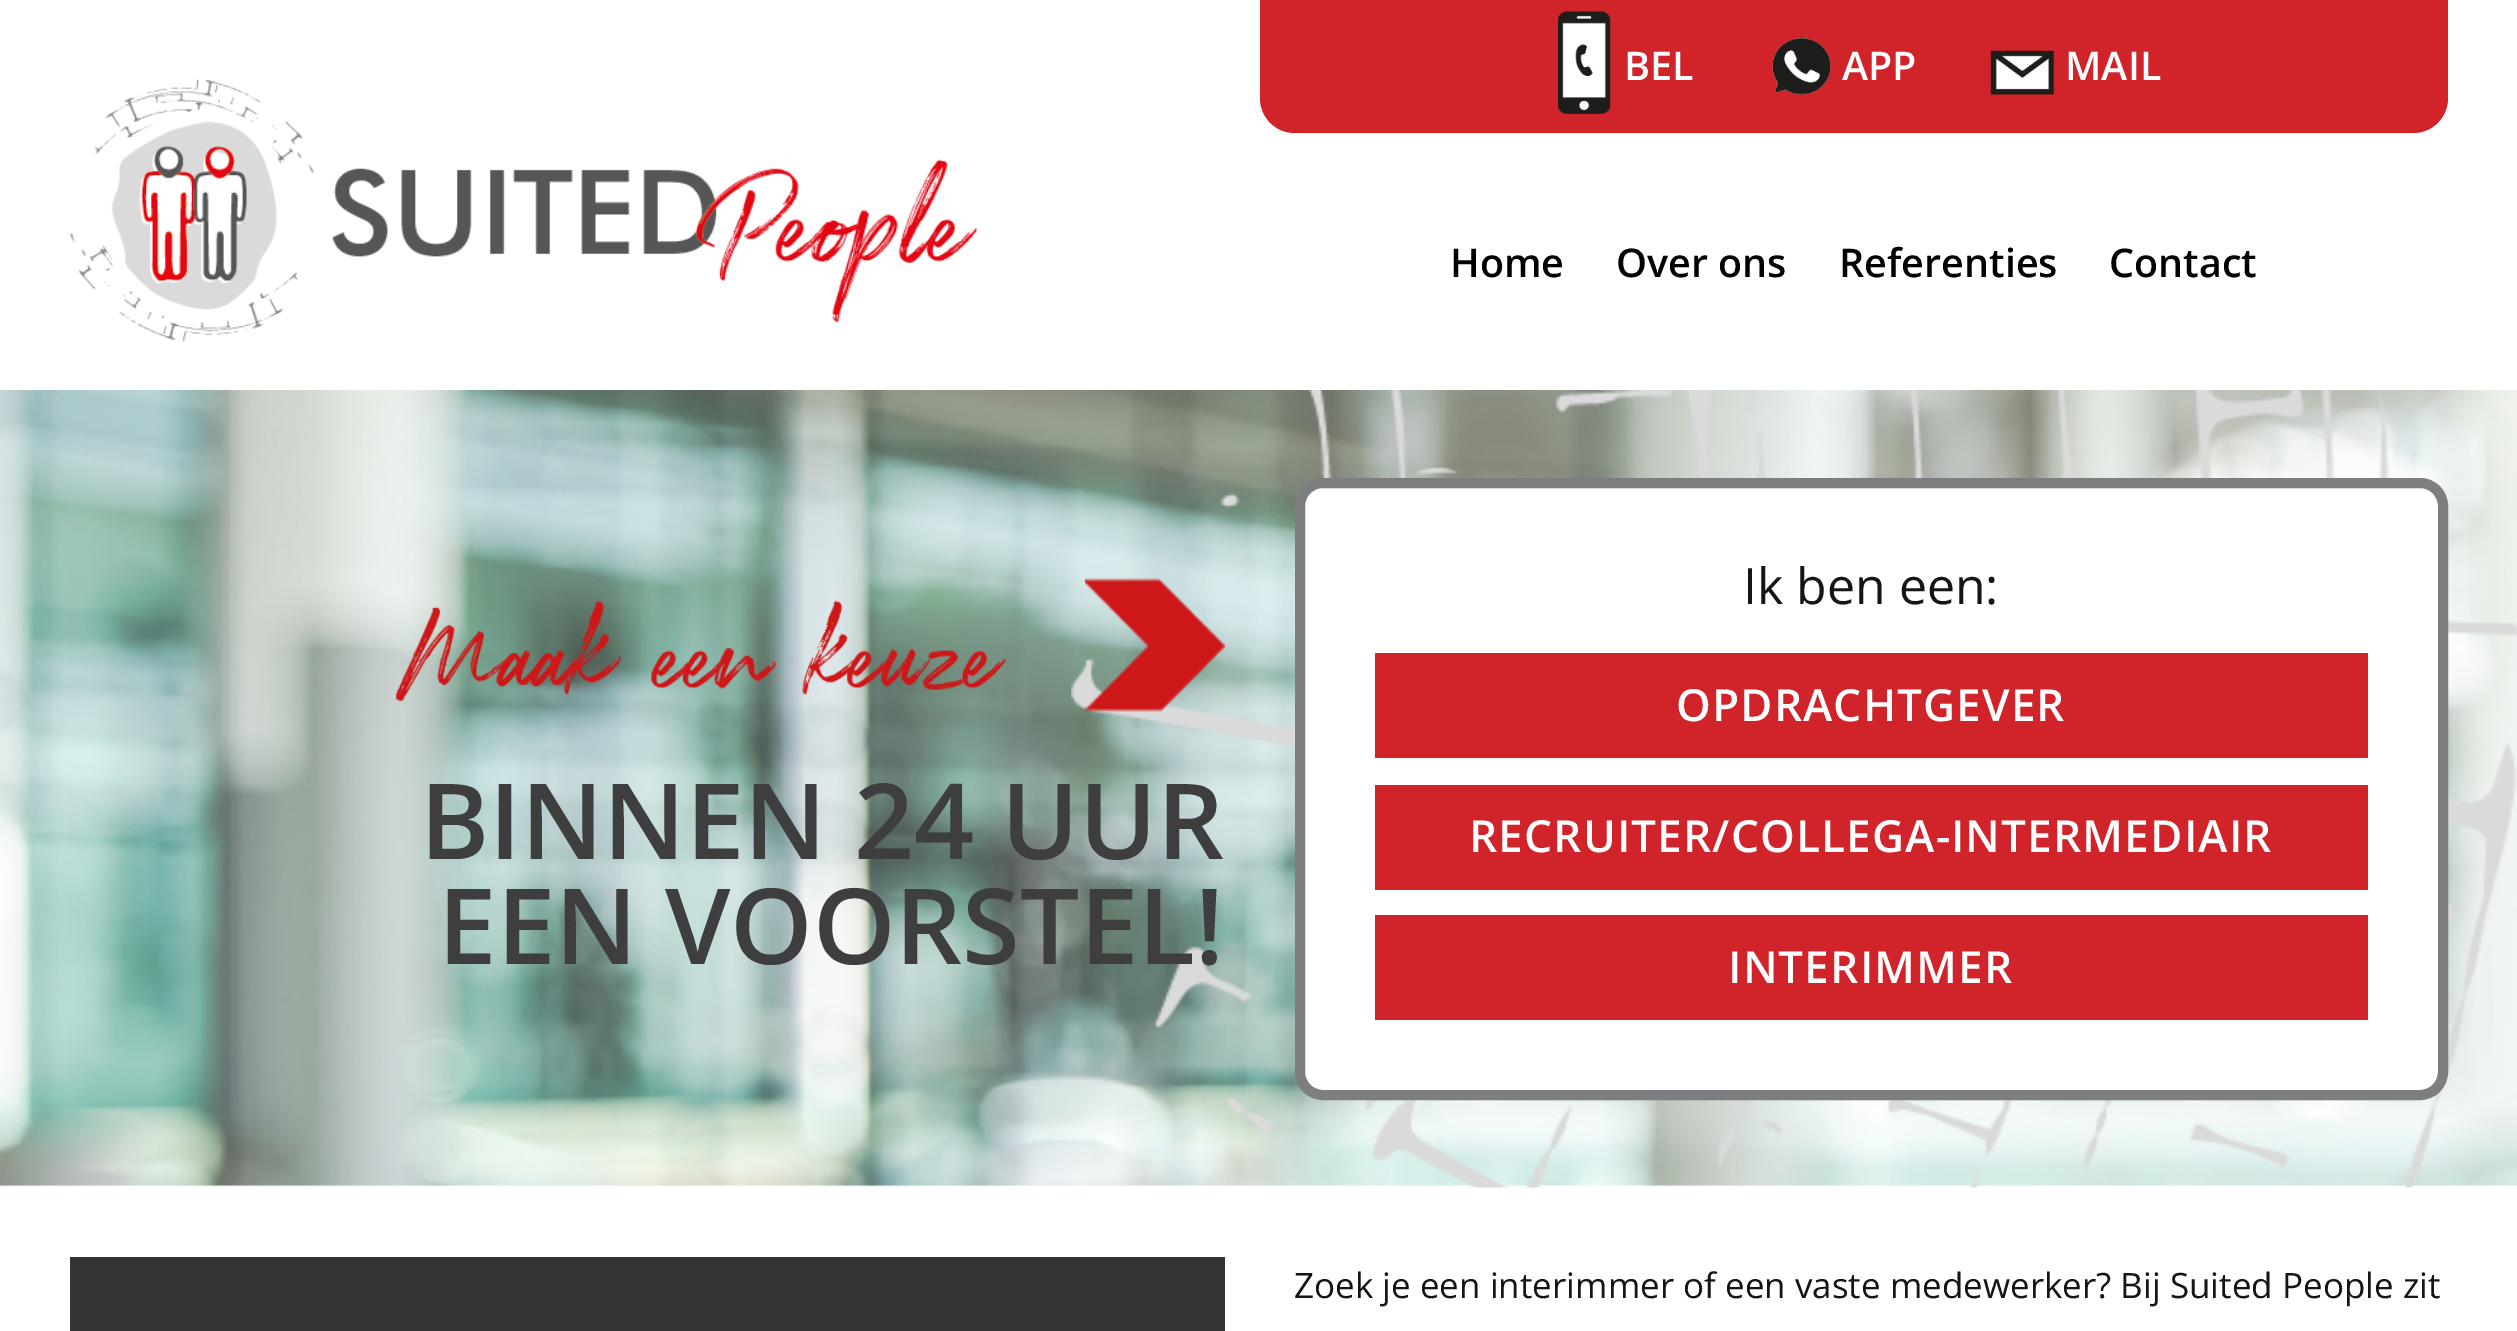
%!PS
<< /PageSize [2517 1331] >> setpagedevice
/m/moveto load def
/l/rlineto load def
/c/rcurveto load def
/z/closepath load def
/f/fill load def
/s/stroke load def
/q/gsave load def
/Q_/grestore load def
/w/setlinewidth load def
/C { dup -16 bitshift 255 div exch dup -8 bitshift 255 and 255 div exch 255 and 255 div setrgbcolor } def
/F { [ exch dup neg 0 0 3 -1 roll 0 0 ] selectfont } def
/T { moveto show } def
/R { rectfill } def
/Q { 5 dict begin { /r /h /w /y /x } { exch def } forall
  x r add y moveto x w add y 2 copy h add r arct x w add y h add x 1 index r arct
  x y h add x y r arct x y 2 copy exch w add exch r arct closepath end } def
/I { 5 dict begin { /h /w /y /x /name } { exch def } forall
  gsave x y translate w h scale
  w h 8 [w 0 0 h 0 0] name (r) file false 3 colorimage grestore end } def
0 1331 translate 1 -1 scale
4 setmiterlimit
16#FFFFFF C
0 0 2517 1331 R
16#D1232A C
1260 0 m 1188 0 l 0 98 l 0 19.5 -15.5 35 -35 35 c -1118 0 l -19.5 0 -35 -15.5 -35 -35 c z f
(1.rgb) 1558 11 53 103 I
/OpenSans-SemiBold 39.5 F
16#FFFFFF C
(BEL) 1624 80 T
(2.rgb) 1772 38 59 57 I
(APP) 1842 80 T
(3.rgb) 1990 50 65 45 I
(MAIL) 2065 80 T
(4.rgb) 70 78 908 264 I
16#000000 C
(Home) 1450 277 T
(Over ons) 1616 277 T
(Referenties) 1839 277 T
(Contact) 2109 277 T
(5.rgb) 0 390 2517 797 I
(6.rgb) 1071 390 1446 798 I
(7.rgb) 395 600 612 102 I
(8.rgb) 1085 578 140 134 I
/OpenSans-SemiBold 105 F
16#3E3E3F C
(BINNEN 24 UUR) 420 859 T
(EEN VOORSTEL!) 438 964 T
16#FFFFFF C
1300 483 1143 612 23 Q q f Q_
16#7E7E81 C
10 w
s
/OpenSans-Regular 50 F
16#151515 C
(Ik ben een:) 1743 604 T
16#D1232A C
1375 653 993 105 R
/OpenSans-SemiBold 44.25 F
16#FFFFFF C
1676 721 m 1.1 0 (OPDRACHTGEVER) ashow
16#D1232A C
1375 785 993 105 R
16#FFFFFF C
1469 852 m 1.1 0 (RECRUITER/COLLEGA-INTERMEDIAIR) ashow
16#D1232A C
1375 915 993 105 R
16#FFFFFF C
1728 983 m 1.1 0 (INTERIMMER) ashow
16#333333 C
70 1257 1155 74 R
/OpenSans-Regular 35 F
16#151515 C
(Zoek je een interimmer of een vaste medewerker? Bij Suited People zit) 1294 1298 T
showpage
